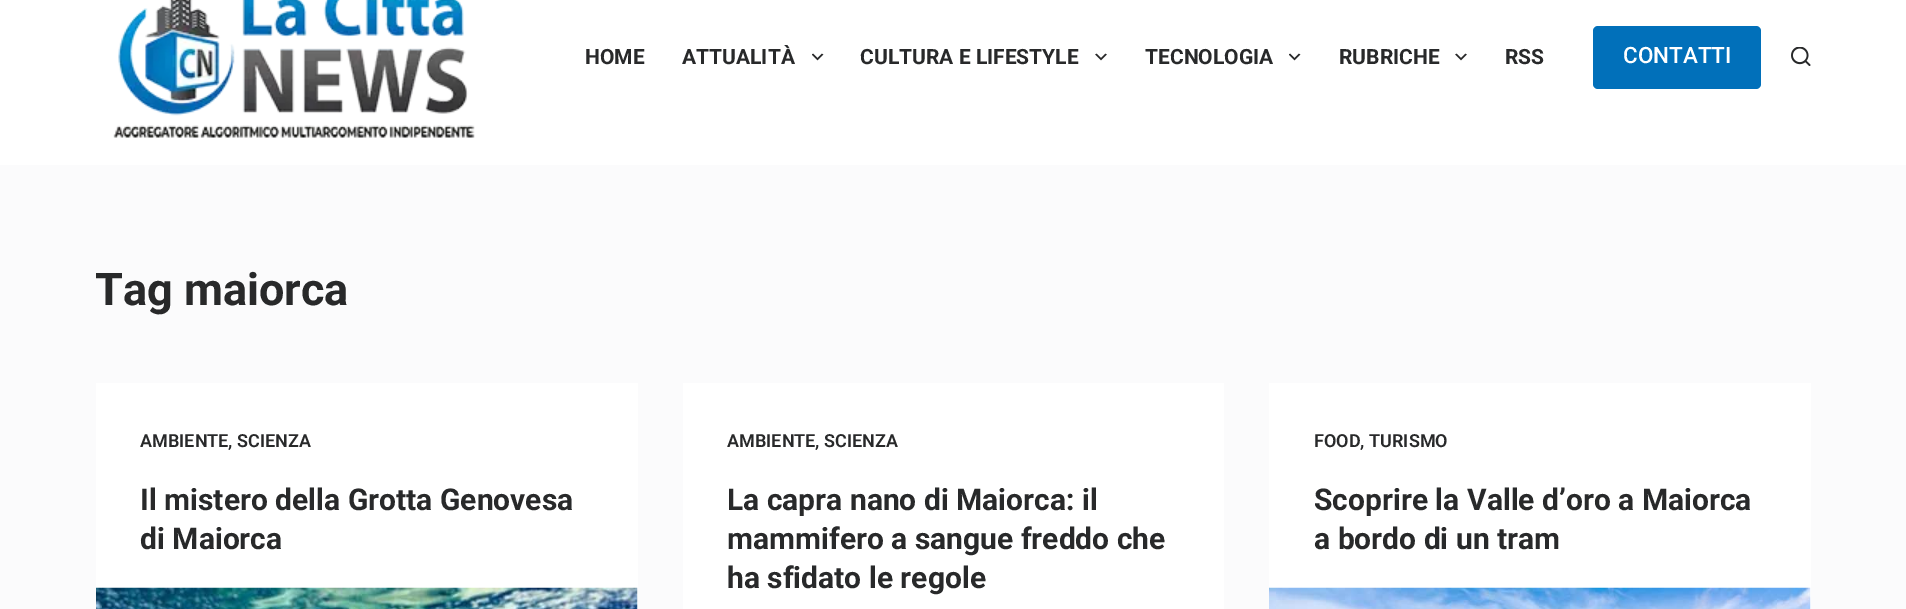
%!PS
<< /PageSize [1906 609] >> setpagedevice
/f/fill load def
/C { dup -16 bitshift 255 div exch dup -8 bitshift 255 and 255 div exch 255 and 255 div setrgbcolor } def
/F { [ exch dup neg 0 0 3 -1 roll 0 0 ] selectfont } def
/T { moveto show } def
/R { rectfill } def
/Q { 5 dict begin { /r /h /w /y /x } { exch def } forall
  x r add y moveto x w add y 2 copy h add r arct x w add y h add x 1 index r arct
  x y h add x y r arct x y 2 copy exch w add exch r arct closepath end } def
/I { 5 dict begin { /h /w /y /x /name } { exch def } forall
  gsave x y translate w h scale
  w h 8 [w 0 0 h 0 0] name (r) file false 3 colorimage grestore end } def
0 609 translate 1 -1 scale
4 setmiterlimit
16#FBFBFC C
0 0 1906 609 R
16#FFFFFF C
0 0 1906 165 R
(1.rgb) 113 0 362 138 I
/Roboto-Bold 21 F
16#28292A C
(HOME) 585 64 T
(ATTUALITÀ) 682 64 T
(2.rgb) 812 53 12 8 I
(CULTURA E LIFESTYLE) 860 64 T
(3.rgb) 1095 53 12 8 I
(TECNOLOGIA) 1145 64 T
(2.rgb) 1289 53 12 8 I
(RUBRICHE) 1339 64 T
(3.rgb) 1455 53 12 8 I
(RSS) 1505 64 T
16#0170BA C
1593 26 168 63 5 Q f
/Roboto-Medium 22.5 F
16#FFFFFF C
(CONTATTI) 1623 63 T
(4.rgb) 1791 47 20 19 I
/Roboto-Bold 45 F
16#28292A C
(Tag maiorca) 95 305 T
16#FFFFFF C
96 383 542 226 R
/Roboto-SemiBold 18 F
16#28292A C
(AMBIENTE, SCIENZA) 140 447 T
/Roboto-Bold 30 F
(Il mistero della Grotta Genovesa) 140 510 T
(di Maiorca) 140 549 T
(5.rgb) 96 587 542 22 I
16#FFFFFF C
683 383 541 226 R
/Roboto-SemiBold 18 F
16#28292A C
(AMBIENTE, SCIENZA) 727 447 T
/Roboto-Bold 30 F
(La capra nano di Maiorca: il) 727 510 T
(mammifero a sangue freddo che) 727 549 T
(ha sfidato le regole) 727 588 T
16#FFFFFF C
1269 383 542 226 R
/Roboto-SemiBold 18 F
16#28292A C
(FOOD, TURISMO) 1314 447 T
/Roboto-Bold 30 F
(Scoprire la Valle d’oro a Maiorca) 1314 510 T
(a bordo di un tram) 1314 549 T
(6.rgb) 1269 587 542 22 I
showpage
